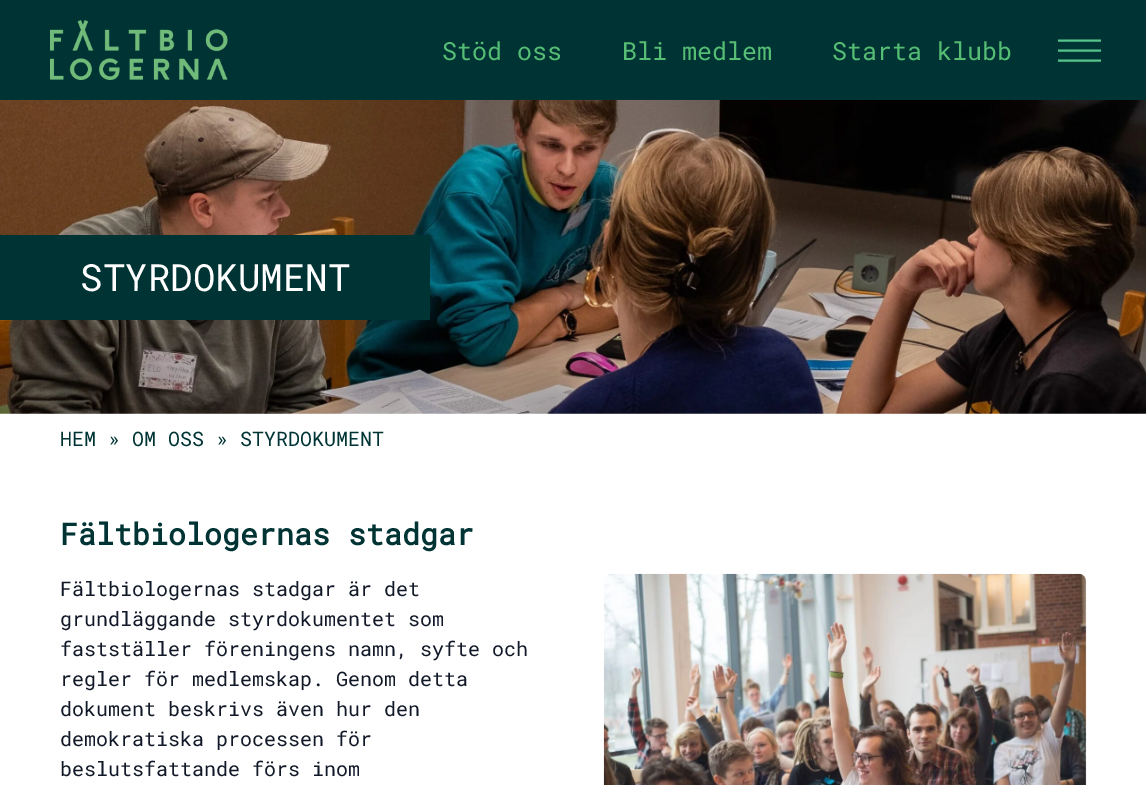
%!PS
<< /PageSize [1146 785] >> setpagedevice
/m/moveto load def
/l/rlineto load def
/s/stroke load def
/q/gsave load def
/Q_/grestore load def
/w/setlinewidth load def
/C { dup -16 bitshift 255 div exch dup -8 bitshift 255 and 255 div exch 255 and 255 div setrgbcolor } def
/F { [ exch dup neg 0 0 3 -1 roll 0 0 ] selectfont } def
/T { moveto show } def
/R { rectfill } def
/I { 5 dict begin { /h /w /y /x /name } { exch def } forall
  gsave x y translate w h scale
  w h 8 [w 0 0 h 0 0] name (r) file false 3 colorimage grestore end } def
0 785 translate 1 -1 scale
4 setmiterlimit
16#FFFFFF C
0 0 1146 785 R
16#003333 C
0 0 1146 100 R
(1.rgb) 50 20 178 60 I
/RobotoMono-Regular 25 F
16#55BE74 C
(Stöd oss) 442 60 T
(Bli medlem) 622 60 T
(Starta klubb) 832 60 T
q
1058 29 43 44 rectclip
16#56C48C C
1.9 w
1057.5 60.5 m 43.5 0 l 1057.5 50.5 m 43.5 0 l 1057.5 40.5 m 43.5 0 l s
Q_
(2.rgb) 0 100 1146 314 I
16#003333 C
0 235 430 85 R
/RobotoMono-Regular 37.5 F
16#FFFFFF C
(STYRDOKUMENT) 80 291 T
/RobotoMono-Regular 20 F
16#003333 C
(HEM » OM OSS » STYRDOKUMENT) 60 446 T
/RobotoMono-Bold 30 F
(Fältbiologernas stadgar) 60 545 T
/RobotoMono-Regular 20 F
16#111827 C
(Fältbiologernas stadgar är det) 60 596 T
(grundläggande styrdokumentet som) 60 626 T
(fastställer föreningens namn, syfte och) 60 656 T
(regler för medlemskap. Genom detta) 60 686 T
(dokument beskrivs även hur den) 60 716 T
(demokratiska processen för) 60 746 T
(beslutsfattande förs inom) 60 776 T
(3.rgb) 603 573 484 212 I
showpage
